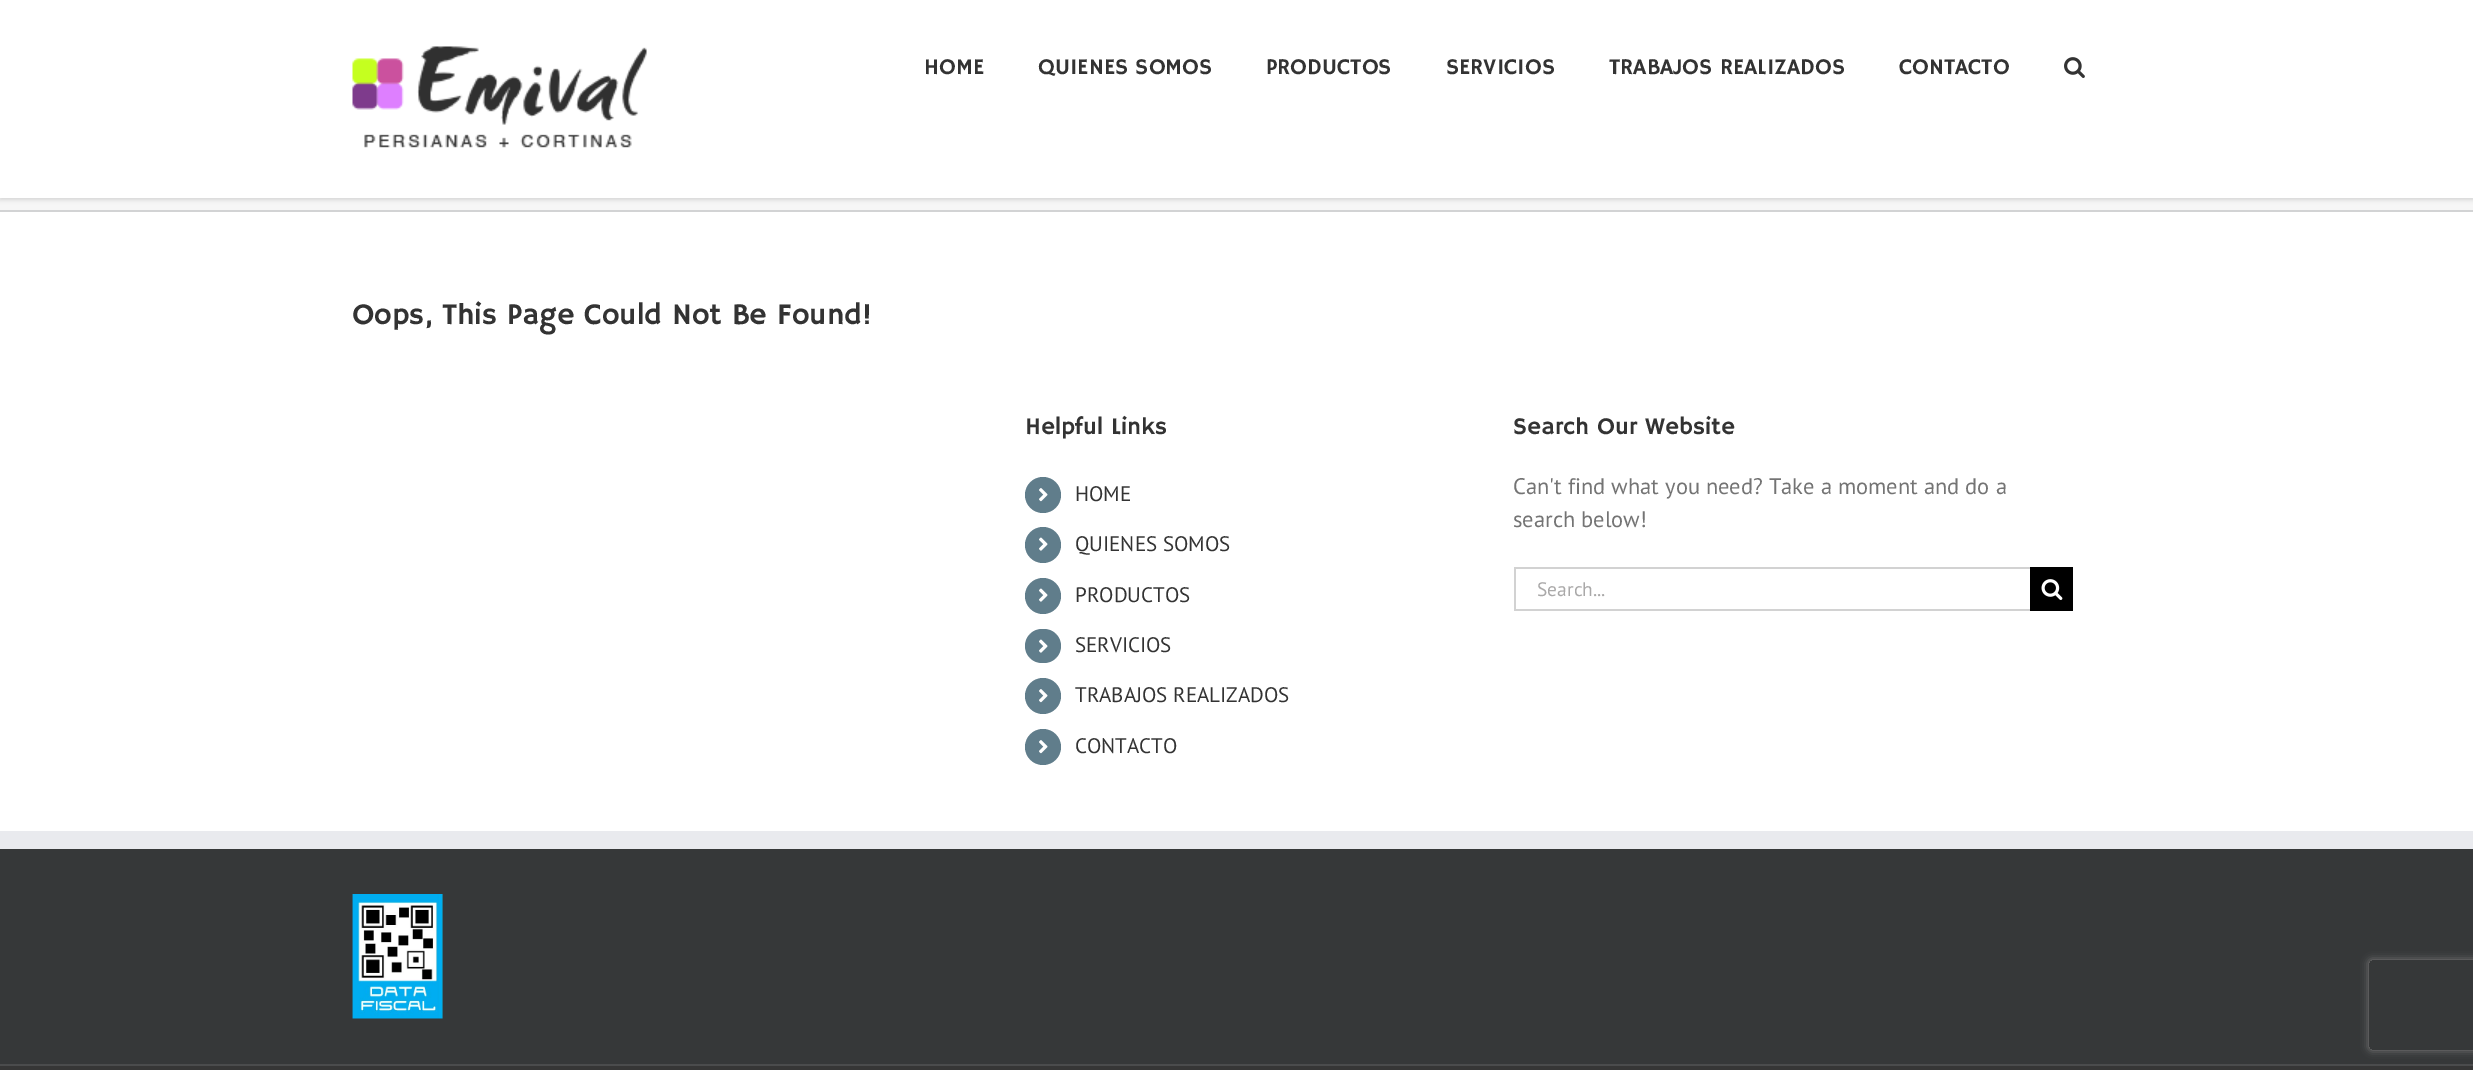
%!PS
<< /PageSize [2473 1070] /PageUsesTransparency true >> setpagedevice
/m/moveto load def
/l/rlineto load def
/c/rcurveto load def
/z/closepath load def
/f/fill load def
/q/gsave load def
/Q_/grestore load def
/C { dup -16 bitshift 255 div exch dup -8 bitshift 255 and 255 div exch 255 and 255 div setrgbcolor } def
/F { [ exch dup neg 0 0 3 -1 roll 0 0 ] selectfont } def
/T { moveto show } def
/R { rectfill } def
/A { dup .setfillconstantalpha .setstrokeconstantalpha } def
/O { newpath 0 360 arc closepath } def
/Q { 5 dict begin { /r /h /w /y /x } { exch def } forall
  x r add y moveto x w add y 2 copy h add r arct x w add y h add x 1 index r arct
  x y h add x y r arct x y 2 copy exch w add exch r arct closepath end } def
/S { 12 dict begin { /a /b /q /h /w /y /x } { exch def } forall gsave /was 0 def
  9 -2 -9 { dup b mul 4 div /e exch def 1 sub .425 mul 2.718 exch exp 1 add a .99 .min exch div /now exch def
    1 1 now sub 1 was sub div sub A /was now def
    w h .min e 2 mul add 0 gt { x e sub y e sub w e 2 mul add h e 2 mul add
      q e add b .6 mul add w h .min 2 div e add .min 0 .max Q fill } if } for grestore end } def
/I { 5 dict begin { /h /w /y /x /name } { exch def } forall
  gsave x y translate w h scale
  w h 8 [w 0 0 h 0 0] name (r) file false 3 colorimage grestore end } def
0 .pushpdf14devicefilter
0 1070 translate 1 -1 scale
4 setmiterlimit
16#FFFFFF C
0 0 2473 1070 R
16#F6F6F6 C
0 198 2473 12 R
16#000000 C
0 2 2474 198 0 2 .12 S
16#FFFFFF C
0 0 2473 198 R
(1.rgb) 352 46 295 102 I
/HammersmithOne-Regular 22.5 F
16#333333 C
(HOME) 924 74 T
(QUIENES SOMOS) 1038 74 T
(PRODUCTOS) 1266 74 T
(SERVICIOS) 1446 74 T
(TRABAJOS REALIZADOS) 1609 74 T
(CONTACTO) 1899 74 T
(2.rgb) 2064 57 21 21 I
16#D2D3D4 C
0 210 2473 2 R
/HammersmithOne-Regular 30 F
16#333333 C
(Oops, This Page Could Not Be Found!) 352 324 T
/HammersmithOne-Regular 24 F
(Helpful Links) 1025 434 T
16#607D8B C
1043 495 18 O f
(3.rgb) 1039 488 9 14 I
/PTSans-Regular 21 F
16#333333 C
(HOME) 1075 501 T
16#607D8B C
1043 545 18 O f
(4.rgb) 1039 537 9 14 I
16#333333 C
(QUIENES SOMOS) 1075 551 T
16#607D8B C
1043 596 18 O f
(4.rgb) 1039 588 9 14 I
16#333333 C
(PRODUCTOS) 1075 602 T
16#607D8B C
1025 629 36 34 17 Q f
(4.rgb) 1039 639 9 14 I
16#333333 C
(SERVICIOS) 1075 652 T
16#607D8B C
1043 696 18 O f
(3.rgb) 1039 689 9 14 I
16#333333 C
(TRABAJOS REALIZADOS) 1075 702 T
16#607D8B C
1043 747 18 O f
(3.rgb) 1039 740 9 14 I
16#333333 C
(CONTACTO) 1075 753 T
/HammersmithOne-Regular 24 F
(Search Our Website) 1513 434 T
/PTSans-Regular 22.5 F
16#747474 C
(Can't find what you need? Take a moment and do a) 1513 494 T
(search below!) 1513 527 T
16#D2D2D2 C
1514 567 516 2 R
1514 609 516 2 R
1514 567 2 44 R
/PTSans-Regular 19.5 F
16#AAA9A9 C
(Search...) 1537 596 T
16#000000 C
2030 567 43 44 R
(5.rgb) 2041 579 22 21 I
16#363839 C
0 849 2473 215 R
16#E9EAEE C
0 831 2473 18 R
(6.rgb) 352 894 91 125 I
16#363636 C
0 1066 2473 4 R
16#4B4C4D C
0 1064 2473 2 R
q
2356 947 m 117 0 l 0 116 l -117 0 l z 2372 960 m 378 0 l 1.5 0 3 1.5 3 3 c 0 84 l 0 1.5 -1.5 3 -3 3 c -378 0 l -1.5 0 -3 -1.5 -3 -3 c 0 -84 l 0 -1.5 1.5 -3 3 -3 c z eoclip newpath
16#808080 C
2369 960 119 90 3 4 1 S
Q_
.poppdf14devicefilter showpage
